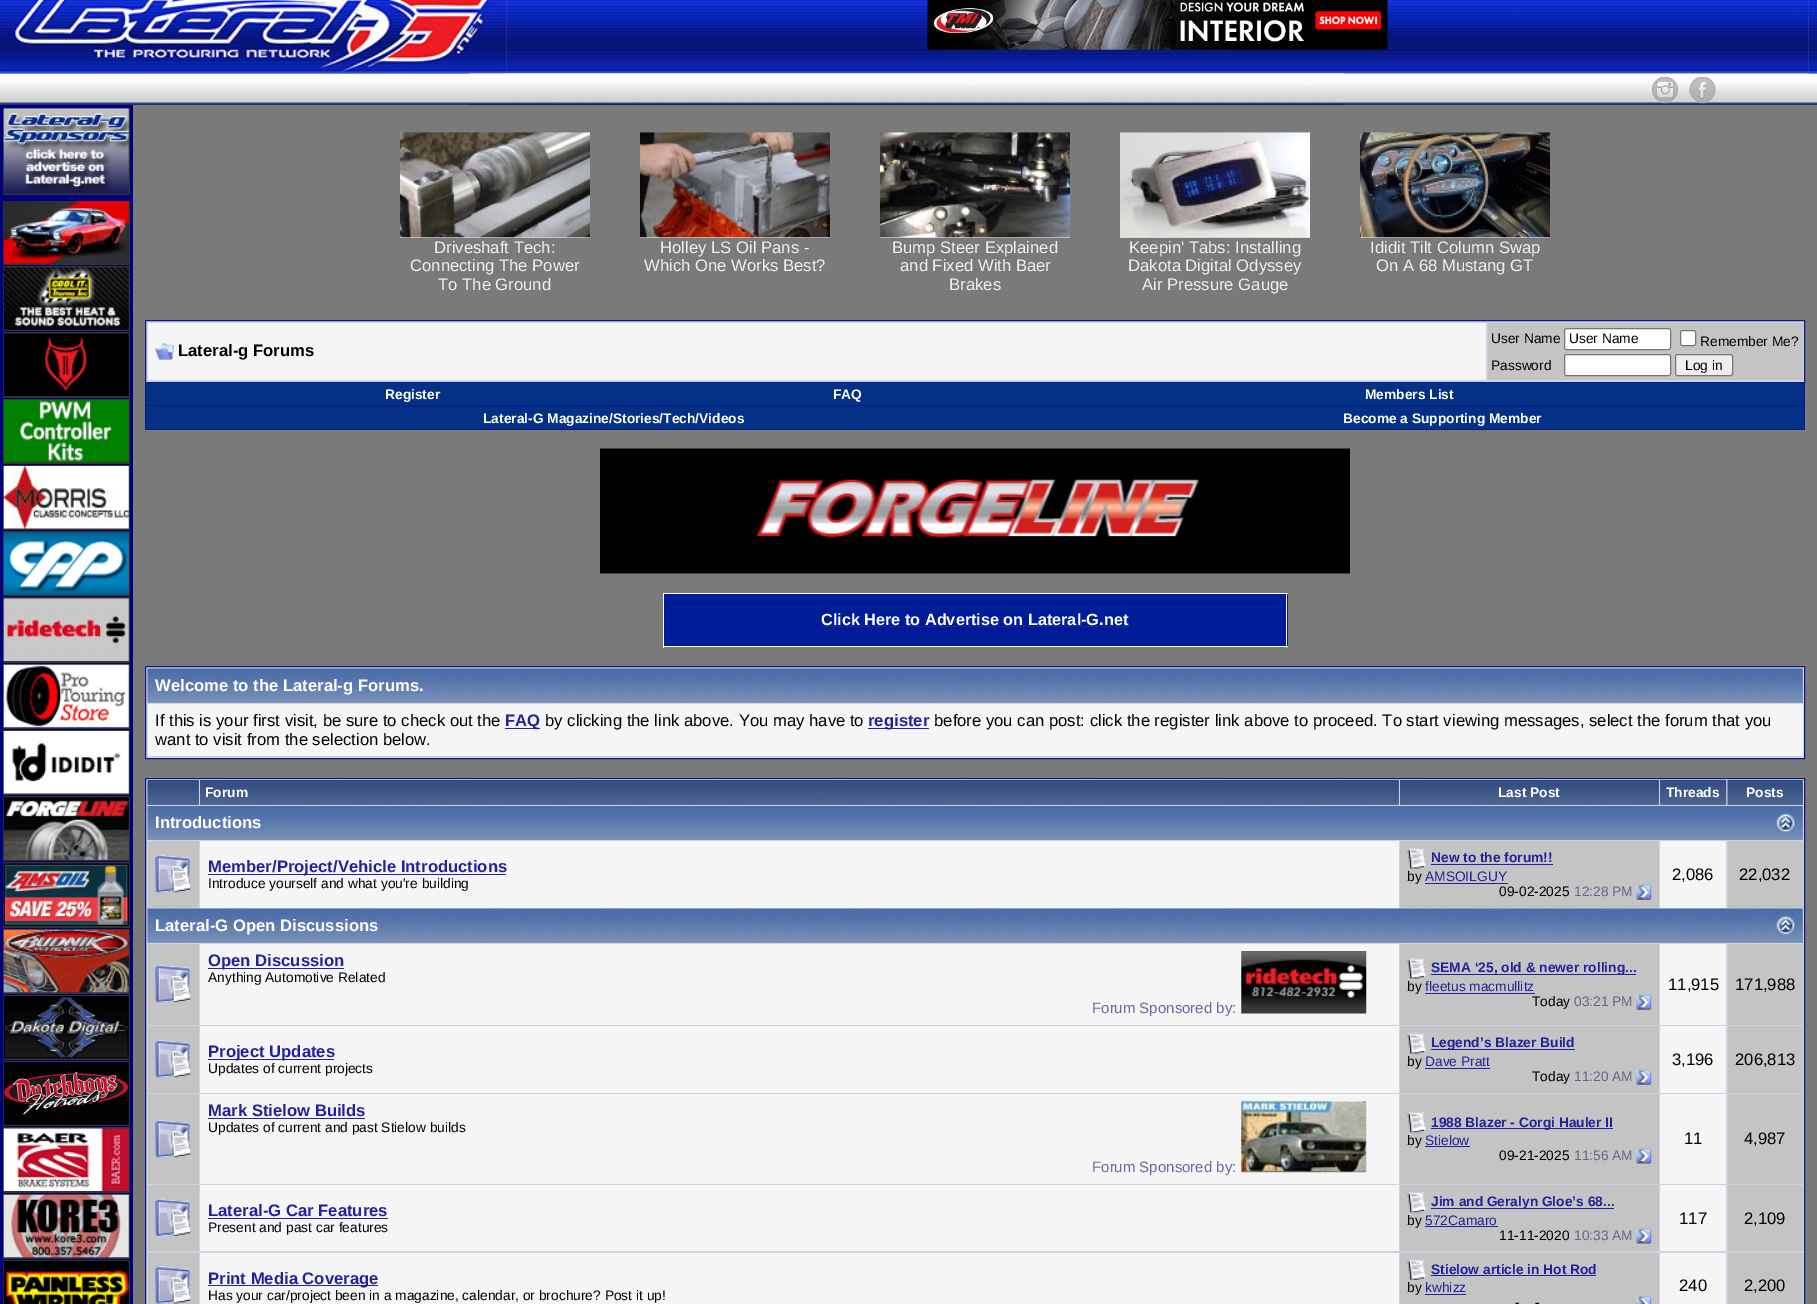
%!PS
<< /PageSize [1817 1304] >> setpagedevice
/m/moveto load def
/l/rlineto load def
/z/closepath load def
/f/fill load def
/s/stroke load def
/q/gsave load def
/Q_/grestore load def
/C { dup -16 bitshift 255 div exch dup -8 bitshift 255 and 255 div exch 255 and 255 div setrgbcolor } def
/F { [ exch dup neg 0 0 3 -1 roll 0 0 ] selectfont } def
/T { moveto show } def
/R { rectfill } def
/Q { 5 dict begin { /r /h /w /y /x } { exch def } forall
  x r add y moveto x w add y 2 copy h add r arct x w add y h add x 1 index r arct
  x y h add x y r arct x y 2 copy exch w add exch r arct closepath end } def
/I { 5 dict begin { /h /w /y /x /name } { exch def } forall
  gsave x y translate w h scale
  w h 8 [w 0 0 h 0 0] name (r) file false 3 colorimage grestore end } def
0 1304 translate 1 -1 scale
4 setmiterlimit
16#7A7A7A C
0 0 1817 1304 R
(2.rgb) 506 0 1303 74 I
(5.rgb) 0 73 1817 32 I
(1.rgb) 0 0 507 74 I
(3.rgb) 927 0 461 50 I
(4.rgb) 1808 0 9 74 I
(6.rgb) 468 73 126 32 I
(7.rgb) 593 73 126 32 I
(8.rgb) 718 73 126 32 I
(9.rgb) 843 73 126 32 I
(10.rgb) 968 73 126 32 I
(11.rgb) 1093 73 126 32 I
(12.rgb) 1218 73 126 32 I
(13.rgb) 1652 76 26 28 I
(14.rgb) 1689 76 27 28 I
16#333333 C
3 108 127 87 R
16#000080 C
0 105 133 3 R
130 105 3 93 R
0 195 133 6 R
0 105 3 93 R
(15.rgb) 3 108 126 86 I
16#333333 C
3 201 127 1103 R
16#000080 C
1 265 132 1 R
1 331 132 1 R
1 398 132 1 R
1 464 132 1 R
1 530 132 1 R
1 596 132 1 R
1 663 132 1 R
1 729 132 1 R
1 795 132 1 R
1 861 132 1 R
1 928 132 1 R
1 994 132 1 R
1 1060 132 1 R
1 1126 132 1 R
1 1193 132 1 R
1 1259 132 1 R
130 198 3 1106 R
0 198 3 1106 R
(16.rgb) 3 201 126 63 I
(17.rgb) 3 267 126 63 I
(18.rgb) 3 333 126 63 I
(19.rgb) 3 399 126 64 I
(20.rgb) 3 466 126 63 I
(21.rgb) 3 532 126 63 I
(22.rgb) 3 598 126 63 I
(23.rgb) 3 664 126 64 I
(24.rgb) 3 731 126 63 I
(25.rgb) 3 797 126 63 I
(26.rgb) 3 863 126 63 I
(27.rgb) 3 929 126 64 I
(28.rgb) 3 996 126 63 I
(29.rgb) 3 1062 126 63 I
(30.rgb) 3 1128 126 63 I
(31.rgb) 3 1194 126 64 I
(32.rgb) 3 1261 126 43 I
16#D3D3D3 C
400 237 190 1 R
(33.rgb) 400 132 190 106 I
/LiberationSans-Regular 16.67 F
16#F0EFEF C
(Driveshaft Tech:) 434 253 T
(Connecting The Power) 410 271 T
(To The Ground) 438 290 T
16#D3D3D3 C
640 237 190 1 R
(34.rgb) 640 132 190 106 I
16#F0EFEF C
(Holley LS Oil Pans -) 660 253 T
(Which One Works Best?) 644 271 T
16#D3D3D3 C
880 237 190 1 R
(35.rgb) 880 132 190 106 I
16#F0EFEF C
(Bump Steer Explained) 892 253 T
(and Fixed With Baer) 900 271 T
(Brakes) 949 290 T
16#D3D3D3 C
1120 237 190 1 R
(36.rgb) 1120 132 190 106 I
16#F0EFEF C
(Keepin' Tabs: Installing) 1129 253 T
(Dakota Digital Odyssey) 1128 271 T
(Air Pressure Gauge) 1142 290 T
16#D3D3D3 C
1360 237 190 1 R
(37.rgb) 1360 132 190 106 I
16#F0EFEF C
(Ididit Tilt Column Swap) 1370 253 T
(On A 68 Mustang GT) 1376 271 T
16#D1D1E1 C
145.5 320.5 m 1659 0 l 0 62 l -1659 0 l z q f Q_
16#0B198C C
s
16#F5F5F5 C
148 323 1338 57 R
(38.rgb) 155 343 19 17 I
/LiberationSans-Bold 16.67 F
16#000000 C
(Lateral-g Forums) 178 356 T
16#C4C4C4 C
1488 323 315 57 R
/LiberationSans-Regular 13.75 F
16#000000 C
(User Name) 1491 343 T
16#FFFFFF C
1564.5 328.5 106 21 2 Q q f Q_
16#767676 C
s
16#000000 C
(User Name) 1569 343 T
16#FFFFFF C
1680.5 330.5 15 15 2 Q q f Q_
16#767676 C
s
16#000000 C
(Remember Me?) 1700 346 T
(Password) 1491 370 T
16#FFFFFF C
1564.5 354.5 106 21 2 Q q f Q_
16#767676 C
s
16#EFEFEF C
1675.5 354.5 57 21 2 Q q f Q_
16#767676 C
s
16#000000 C
(Log in) 1685 370 T
16#0B198C C
1804 383 1 47 R
145 405 1660 1 R
145 383 1 23 R
16#043086 C
146 383 1658 22 R
/LiberationSans-Bold 13.75 F
16#FFFFFF C
(Register) 385 399 T
(FAQ) 833 399 T
(Members List) 1365 399 T
16#0B198C C
145 429 1660 1 R
145 406 1 24 R
16#043086 C
146 406 1658 23 R
16#FFFFFF C
(Lateral-G Magazine/Stories/Tech/Videos) 483 423 T
(Become a Supporting Member) 1343 423 T
(39.rgb) 600 448 750 126 I
663 593 625 1 R
16#001D99 C
664 594 624 52 R
16#FFFFFF C
1286 593 1 55 R
663 646 625 1 R
663 593 1 55 R
/LiberationSans-Bold 16.25 F
(Click Here to Advertise on Lateral-G.net) 821 625 T
16#22229C C
821 626 308 1 R
16#D1D1E1 C
145.5 666.5 m 1659 0 l 0 92 l -1659 0 l z q f Q_
16#0B198C C
s
16#869BBF C
148 669 1655 34 R
(40.rgb) 147 668 1656 35 I
/LiberationSans-Bold 16.67 F
16#FFFFFF C
(Welcome to the Lateral-g Forums.) 155 691 T
16#F5F5F5 C
148 704 1655 52 R
/LiberationSans-Regular 16.67 F
16#000000 C
(If this is your first visit, be sure to check out the) 155 726 T
16#22229C C
505 728 35 1 R
/LiberationSans-Bold 16.67 F
(FAQ) 505 726 T
/LiberationSans-Regular 16.67 F
16#000000 C
(by clicking the link above. You may have to) 545 726 T
16#22229C C
868 728 61 1 R
/LiberationSans-Bold 16.67 F
(register) 868 726 T
/LiberationSans-Regular 16.67 F
16#000000 C
(before you can post: click the register link above to proceed. To start viewing messages, select the forum that you) 934 726 T
(want to visit from the selection below.) 155 745 T
16#D1D1E1 C
145.5 778.5 m 1659 0 l 0 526 l -1659 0 l z q f Q_
16#0B198C C
s
16#5C7099 C
148 780 51 25 R
(41.rgb) 147 779 52 26 I
200 780 1199 25 R
(42.rgb) 200 779 1199 26 I
/LiberationSans-Bold 13.75 F
16#FFFFFF C
(Forum) 205 797 T
16#5C7099 C
1400 780 259 25 R
(43.rgb) 1400 779 259 26 I
16#FFFFFF C
(Last Post) 1498 797 T
(44.rgb) 1660 779 67 26 I
(Threads) 1666 797 T
16#5C7099 C
1728 780 75 25 R
(45.rgb) 1727 779 76 26 I
16#FFFFFF C
(Posts) 1746 797 T
16#869BBF C
148 806 1655 34 R
(46.rgb) 147 806 1656 34 I
/LiberationSans-Bold 16.67 F
16#FFFFFF C
(Introductions) 155 828 T
(47.rgb) 1776 813 19 20 I
16#C4C4C4 C
148 841 51 67 R
(48.rgb) 155 854 37 39 I
16#F5F5F5 C
200 841 1199 67 R
16#22229C C
208 874 298 1 R
(Member/Project/Vehicle Introductions) 208 872 T
/LiberationSans-Regular 13.75 F
16#000000 C
(Introduce yourself and what you're building) 208 888 T
16#C4C4C4 C
1400 841 259 67 R
(49.rgb) 1407 848 20 21 I
/LiberationSans-Bold 13.75 F
16#22229C C
(New to the forum!!) 1431 862 T
1431 864 122 1 R
/LiberationSans-Regular 13.75 F
16#000000 C
(by) 1407 881 T
16#22229C C
(AMSOILGUY) 1425 881 T
1425 883 83 1 R
16#000000 C
(09-02-2025) 1499 896 T
16#666686 C
(12:28 PM) 1574 896 T
(50.rgb) 1636 884 16 16 I
16#F5F5F5 C
1660 841 66 67 R
/LiberationSans-Regular 16.67 F
16#000000 C
(2,086) 1672 880 T
16#C4C4C4 C
1728 841 75 67 R
16#000000 C
(22,032) 1739 880 T
16#869BBF C
148 909 1655 34 R
(51.rgb) 147 908 1656 35 I
/LiberationSans-Bold 16.67 F
16#FFFFFF C
(Lateral-G Open Discussions) 155 931 T
(52.rgb) 1776 916 19 19 I
16#C4C4C4 C
148 944 51 81 R
(48.rgb) 155 964 37 39 I
16#F5F5F5 C
200 944 1199 81 R
16#22229C C
208 968 136 1 R
(Open Discussion) 208 966 T
/LiberationSans-Regular 15 F
16#6169A7 C
(Forum Sponsored by:) 1092 1013 T
(53.rgb) 1241 951 126 63 I
/LiberationSans-Regular 13.75 F
16#000000 C
(Anything Automotive Related) 208 982 T
16#C4C4C4 C
1400 944 259 81 R
(49.rgb) 1407 958 20 21 I
16#22229C C
1431 974 205 1 R
/LiberationSans-Bold 13.75 F
(SEMA ‘25, old & newer rolling...) 1431 972 T
/LiberationSans-Regular 13.75 F
16#000000 C
(by) 1407 991 T
16#22229C C
(fleetus macmullitz) 1425 991 T
1425 993 110 1 R
16#000000 C
(Today) 1532 1006 T
16#666686 C
(03:21 PM) 1574 1006 T
(50.rgb) 1636 994 16 16 I
16#F5F5F5 C
1660 944 66 81 R
/LiberationSans-Regular 16.67 F
16#000000 C
(11,915) 1668 990 T
16#C4C4C4 C
1728 944 75 81 R
16#000000 C
(171,988) 1735 990 T
16#C4C4C4 C
148 1026 51 67 R
(48.rgb) 155 1039 37 39 I
16#F5F5F5 C
200 1026 1199 67 R
16#22229C C
208 1059 126 1 R
/LiberationSans-Bold 16.67 F
(Project Updates) 208 1057 T
/LiberationSans-Regular 13.75 F
16#000000 C
(Updates of current projects) 208 1073 T
16#C4C4C4 C
1400 1026 259 67 R
(49.rgb) 1407 1033 20 21 I
16#22229C C
1431 1049 144 1 R
/LiberationSans-Bold 13.75 F
(Legend’s Blazer Build) 1431 1047 T
/LiberationSans-Regular 13.75 F
16#000000 C
(by) 1407 1066 T
16#22229C C
(Dave Pratt) 1425 1066 T
1425 1068 65 1 R
16#000000 C
(Today) 1532 1081 T
16#666686 C
(11:20 AM) 1574 1081 T
(50.rgb) 1636 1069 16 16 I
16#F5F5F5 C
1660 1026 66 67 R
/LiberationSans-Regular 16.67 F
16#000000 C
(3,196) 1672 1065 T
16#C4C4C4 C
1728 1026 75 67 R
16#000000 C
(206,813) 1735 1065 T
16#C4C4C4 C
148 1094 51 90 R
(54.rgb) 155 1119 37 39 I
16#F5F5F5 C
200 1094 1199 90 R
/LiberationSans-Bold 16.67 F
16#22229C C
(Mark Stielow Builds) 208 1116 T
208 1118 157 1 R
/LiberationSans-Regular 15 F
16#6169A7 C
(Forum Sponsored by:) 1092 1172 T
(55.rgb) 1241 1101 126 72 I
/LiberationSans-Regular 13.75 F
16#000000 C
(Updates of current and past Stielow builds) 208 1132 T
16#C4C4C4 C
1400 1094 259 90 R
(56.rgb) 1407 1112 20 21 I
16#22229C C
1431 1128 182 1 R
/LiberationSans-Bold 13.75 F
(1988 Blazer - Corgi Hauler II) 1431 1127 T
/LiberationSans-Regular 13.75 F
16#000000 C
(by) 1407 1145 T
16#22229C C
(Stielow) 1425 1145 T
1425 1146 45 1 R
16#000000 C
(09-21-2025) 1499 1160 T
16#666686 C
(11:56 AM) 1574 1160 T
(57.rgb) 1636 1148 16 16 I
16#F5F5F5 C
1660 1094 66 90 R
/LiberationSans-Regular 16.67 F
16#000000 C
(11) 1684 1144 T
16#C4C4C4 C
1728 1094 75 90 R
16#000000 C
(4,987) 1744 1144 T
16#C4C4C4 C
148 1185 51 66 R
(58.rgb) 155 1198 37 38 I
16#F5F5F5 C
200 1185 1199 66 R
/LiberationSans-Bold 16.67 F
16#22229C C
(Lateral-G Car Features) 208 1216 T
208 1218 180 1 R
/LiberationSans-Regular 13.75 F
16#000000 C
(Present and past car features) 208 1232 T
16#C4C4C4 C
1400 1185 259 66 R
(56.rgb) 1407 1192 20 21 I
16#22229C C
1431 1208 183 1 R
/LiberationSans-Bold 13.75 F
(Jim and Geralyn Gloe’s 68...) 1431 1206 T
/LiberationSans-Regular 13.75 F
16#000000 C
(by) 1407 1225 T
16#22229C C
(572Camaro) 1425 1225 T
1425 1226 73 1 R
16#000000 C
(11-11-2020) 1499 1240 T
16#666686 C
(10:33 AM) 1574 1240 T
(57.rgb) 1636 1228 16 16 I
16#F5F5F5 C
1660 1185 66 66 R
/LiberationSans-Regular 16.67 F
16#000000 C
(117) 1679 1224 T
16#C4C4C4 C
1728 1185 75 66 R
16#000000 C
(2,109) 1744 1224 T
16#C4C4C4 C
148 1253 51 51 R
(59.rgb) 155 1266 37 38 I
16#F5F5F5 C
200 1253 1199 51 R
16#22229C C
208 1285 170 1 R
/LiberationSans-Bold 16.67 F
(Print Media Coverage) 208 1284 T
/LiberationSans-Regular 13.75 F
16#000000 C
(Has your car/project been in a magazine, calendar, or brochure? Post it up!) 208 1300 T
16#C4C4C4 C
1400 1253 259 51 R
(60.rgb) 1407 1259 20 21 I
/LiberationSans-Bold 13.75 F
16#22229C C
(Stielow article in Hot Rod) 1431 1274 T
1431 1275 165 1 R
/LiberationSans-Regular 13.75 F
16#000000 C
(by) 1407 1292 T
16#22229C C
(kwhizz) 1425 1292 T
1425 1294 41 1 R
16#000000 C
(-) 1515 1307 T
(-) 1535 1307 T
(61.rgb) 1636 1296 16 8 I
16#F5F5F5 C
1660 1253 66 51 R
/LiberationSans-Regular 16.67 F
16#000000 C
(240) 1679 1291 T
16#C4C4C4 C
1728 1253 75 51 R
16#000000 C
(2,200) 1744 1291 T
showpage
